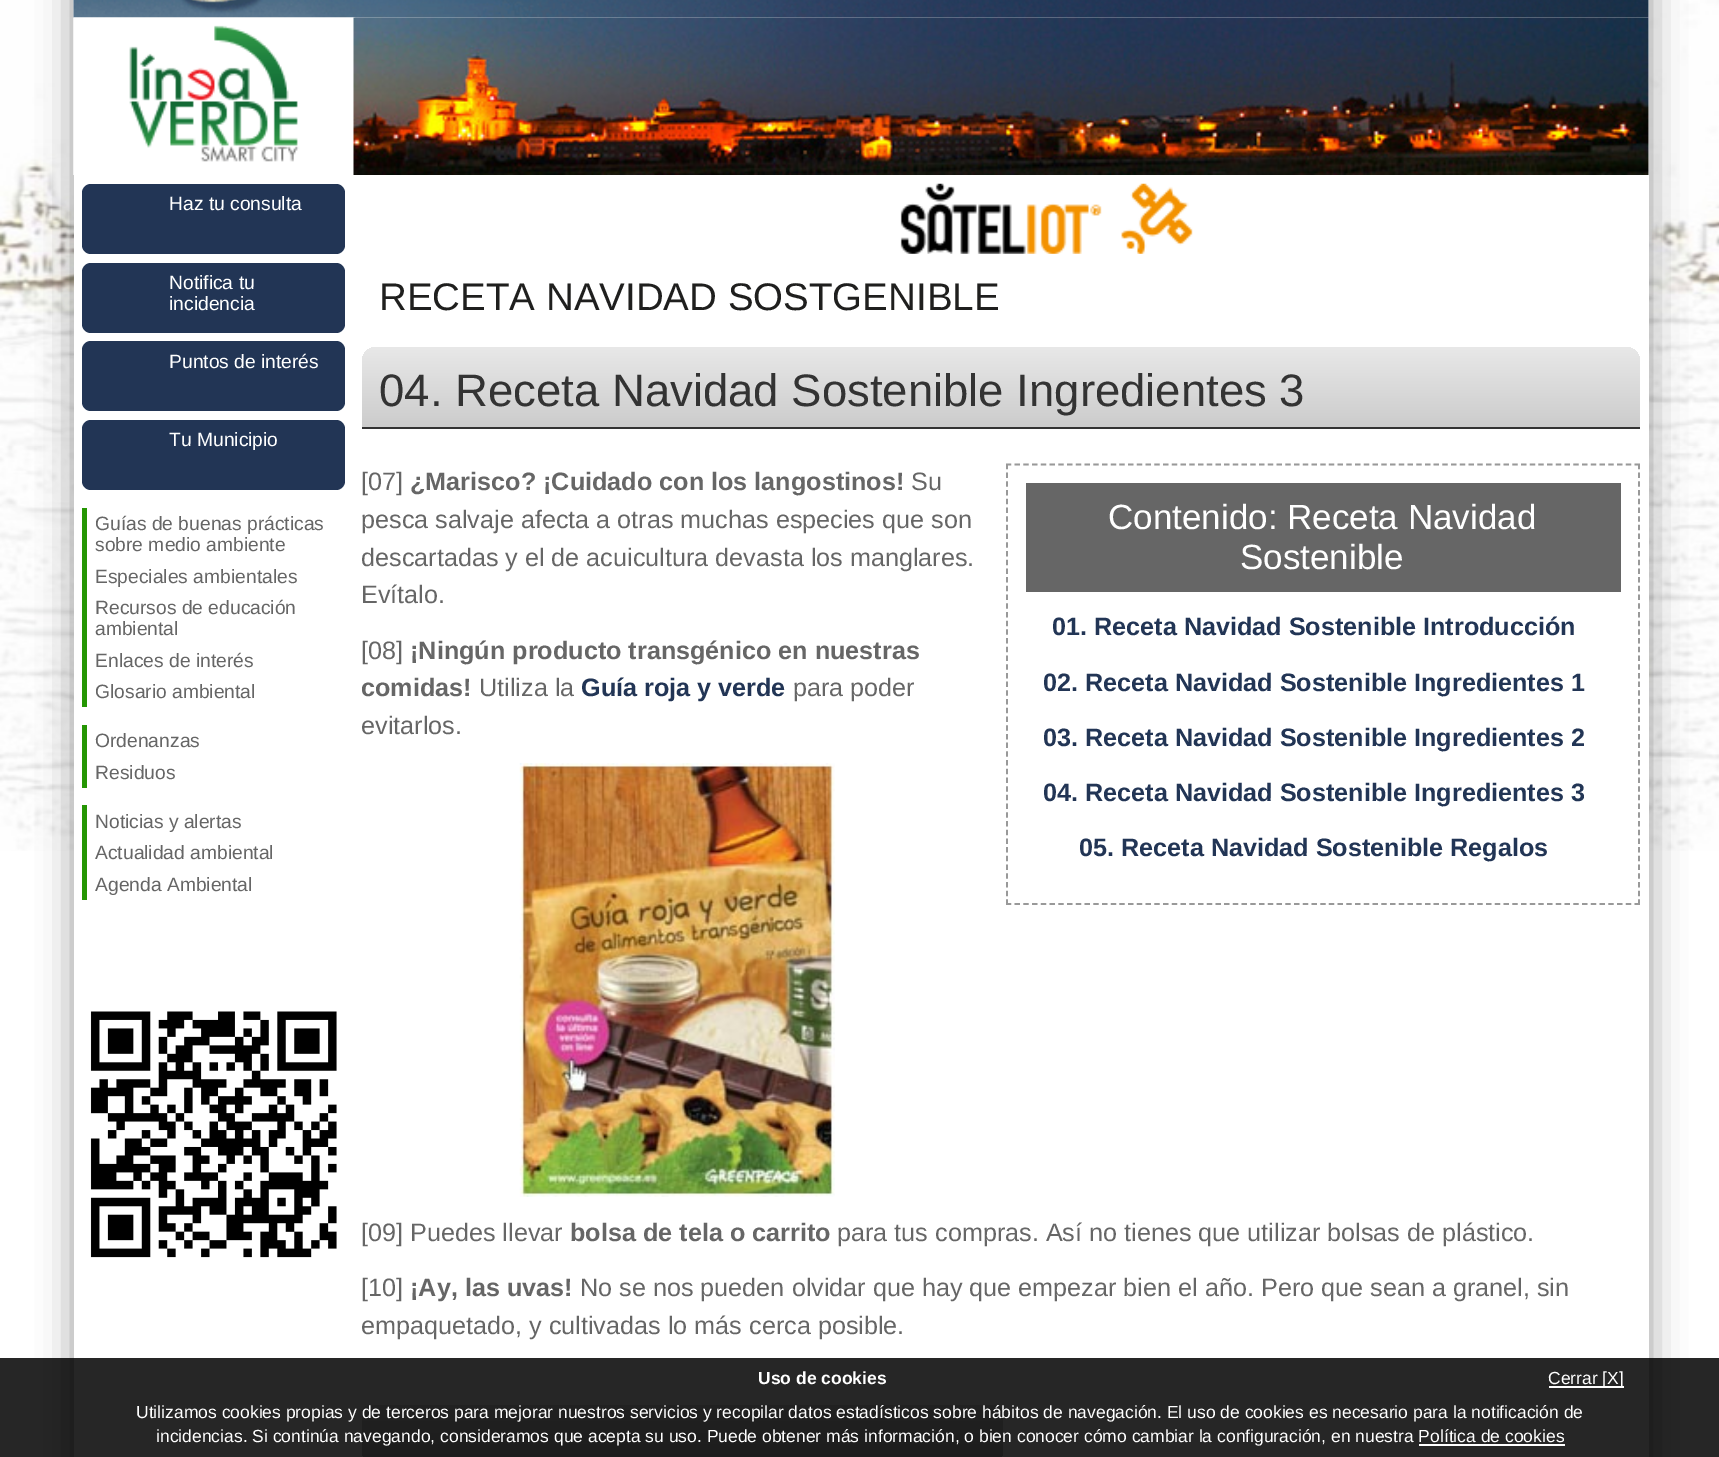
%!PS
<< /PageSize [1719 1457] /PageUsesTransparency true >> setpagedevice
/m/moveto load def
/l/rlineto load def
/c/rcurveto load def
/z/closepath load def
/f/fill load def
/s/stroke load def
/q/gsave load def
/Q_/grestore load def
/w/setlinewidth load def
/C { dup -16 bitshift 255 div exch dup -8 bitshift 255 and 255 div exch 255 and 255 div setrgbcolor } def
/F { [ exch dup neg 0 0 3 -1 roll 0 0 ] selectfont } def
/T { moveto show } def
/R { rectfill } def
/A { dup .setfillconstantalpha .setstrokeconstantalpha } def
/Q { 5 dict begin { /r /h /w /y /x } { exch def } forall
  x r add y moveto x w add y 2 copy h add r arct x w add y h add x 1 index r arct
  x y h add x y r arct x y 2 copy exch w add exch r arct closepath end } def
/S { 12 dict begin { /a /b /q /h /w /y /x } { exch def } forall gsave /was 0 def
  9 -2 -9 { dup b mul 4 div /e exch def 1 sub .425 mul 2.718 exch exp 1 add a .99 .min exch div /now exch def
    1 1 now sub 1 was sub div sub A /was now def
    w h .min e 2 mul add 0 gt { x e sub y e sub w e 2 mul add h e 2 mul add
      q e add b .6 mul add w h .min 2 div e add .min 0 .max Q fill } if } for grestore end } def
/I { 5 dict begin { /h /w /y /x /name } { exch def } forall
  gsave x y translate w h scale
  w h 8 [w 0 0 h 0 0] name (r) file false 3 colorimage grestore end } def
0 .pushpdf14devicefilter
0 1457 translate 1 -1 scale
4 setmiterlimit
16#FFFFFF C
0 0 1719 1457 R
(1.rgb) 0 0 1719 851 I
16#000000 C
74 -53 1575 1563 0 17.5 .4 S
16#FFFFFF C
74 0 1575 1457 R
(2.rgb) 73 0 1576 18 I
(3.rgb) 73 17 283 158 I
(4.rgb) 353 17 1296 158 I
(5.rgb) 900 183 293 71 I
16#223555 C
82 184 263 70 9 Q f
/LiberationSans-Regular 19.25 F
16#FFFFFF C
(Haz tu consulta) 169 210 T
16#223555 C
82 263 263 70 9 Q f
16#FFFFFF C
(Notifica tu) 169 289 T
(incidencia) 169 310 T
16#223555 C
82 341 263 70 9 Q f
16#FFFFFF C
(Puntos de interés) 169 368 T
16#223555 C
82 420 263 70 9 Q f
16#FFFFFF C
(Tu Municipio) 169 446 T
16#259603 C
82 508 5 199 R
16#666666 C
(Guías de buenas prácticas) 95 530 T
(sobre medio ambiente) 95 551 T
(Especiales ambientales) 95 583 T
(Recursos de educación) 95 614 T
(ambiental) 95 635 T
(Enlaces de interés) 95 667 T
(Glosario ambiental) 95 698 T
16#259603 C
82 725 5 63 R
16#666666 C
(Ordenanzas) 95 747 T
(Residuos) 95 779 T
16#259603 C
82 805 5 95 R
16#666666 C
(Noticias y alertas) 95 828 T
(Actualidad ambiental) 95 859 T
(Agenda Ambiental) 95 891 T
(6.rgb) 90 1011 247 247 I
/LiberationSans-Regular 38.5 F
16#1F1F1E C
(RECETA NAVIDAD SOSTGENIBLE) 379 310 T
q 376 347 m 1250 0 l 7.5 0 14 6.5 14 14 c 0 66 l -1278 0 l 0 -66 l 0 -7.5 6.5 -14 14 -14 c z clip newpath
<< /ShadingType 2 /ColorSpace /DeviceRGB /Coords [1001 346 1001 427] /Extend [true true] /Function << /FunctionType 2 /Domain [0 1] /C0 [.91 .91 .91] /C1 [.8 .8 .8] /N 1 >> >> shfill Q_
16#333333 C
362 427 1278 2 R
/LiberationSans-Regular 45.5 F
(04. Receta Navidad Sostenible Ingredientes 3) 379 406 T
/LiberationSans-Regular 25.2 F
16#666666 C
([07]) 361 490 T
/LiberationSans-Bold 25.2 F
(¿Marisco? ¡Cuidado con los langostinos!) 410 490 T
/LiberationSans-Regular 25.2 F
(Su) 911 490 T
(pesca salvaje afecta a otras muchas especies que son) 361 528 T
(descartadas y el de acuicultura devasta los manglares.) 361 566 T
(Evítalo.) 361 603 T
16#999999 C
1.8 w
[5.25 3.48] 0 setdash
1006 464.5 m 634 0 l s
[5.25 3.46] 0 setdash
1639 464 m 0 441 l s
[5.25 3.48] 0 setdash
1006 904 m 634 0 l s
[5.25 3.46] 0 setdash
1007 464 m 0 441 l s
16#666666 C
1026 483 595 109 R
/LiberationSans-Regular 35 F
16#FFFFFF C
(Contenido: Receta Navidad) 1108 529 T
(Sostenible) 1240 569 T
/LiberationSans-Bold 25.2 F
16#223555 C
(01. Receta Navidad Sostenible Introducción) 1052 635 T
(02. Receta Navidad Sostenible Ingredientes 1) 1043 691 T
(03. Receta Navidad Sostenible Ingredientes 2) 1043 746 T
(04. Receta Navidad Sostenible Ingredientes 3) 1043 801 T
(05. Receta Navidad Sostenible Regalos) 1079 856 T
/LiberationSans-Regular 25.2 F
16#666666 C
([08]) 361 659 T
/LiberationSans-Bold 25.2 F
(¡Ningún producto transgénico en nuestras) 410 659 T
(comidas!) 361 696 T
/LiberationSans-Regular 25.2 F
(Utiliza la) 479 696 T
/LiberationSans-Bold 25.2 F
16#223555 C
(Guía roja y verde) 581 696 T
/LiberationSans-Regular 25.2 F
16#666666 C
(para poder) 793 696 T
(evitarlos.) 361 734 T
(7.rgb) 519 763 316 434 I
([09] Puedes llevar) 361 1241 T
/LiberationSans-Bold 25.2 F
(bolsa de tela o carrito) 570 1241 T
/LiberationSans-Regular 25.2 F
(para tus compras. Así no tienes que utilizar bolsas de plástico.) 837 1241 T
([10]) 361 1296 T
/LiberationSans-Bold 25.2 F
(¡Ay, las uvas!) 410 1296 T
/LiberationSans-Regular 25.2 F
(No se nos pueden olvidar que hay que empezar bien el año. Pero que sean a granel, sin) 580 1296 T
(empaquetado, y cultivadas lo más cerca posible.) 361 1334 T
q 362 1405 641 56 9 Q clip newpath
<< /ShadingType 2 /ColorSpace /DeviceRGB /Coords [683 1405 683 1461] /Extend [true true] /Function << /FunctionType 2 /Domain [0 1] /C0 [.871 .871 .871] /C1 [.737 .737 .737] /N 1 >> >> shfill Q_
0.85 A
16#000000 C
0 1358 1719 99 R
/LiberationSans-Bold 17.5 F
1 A
16#FFFFFF C
(Uso de cookies) 758 1384 T
1549 1386 75 2 R
/LiberationSans-Regular 17.5 F
(Cerrar [X]) 1548 1384 T
(Utilizamos cookies propias y de terceros para mejorar nuestros servicios y recopilar datos estadísticos sobre hábitos de navegación. El uso de cookies es necesario para la notificación de) 136 1418 T
(incidencias. Si continúa navegando, consideramos que acepta su uso. Puede obtener más información, o bien conocer cómo cambiar la configuración, en nuestra Política de cookies) 156 1442 T
1419 1444 146 2 R
.poppdf14devicefilter showpage
